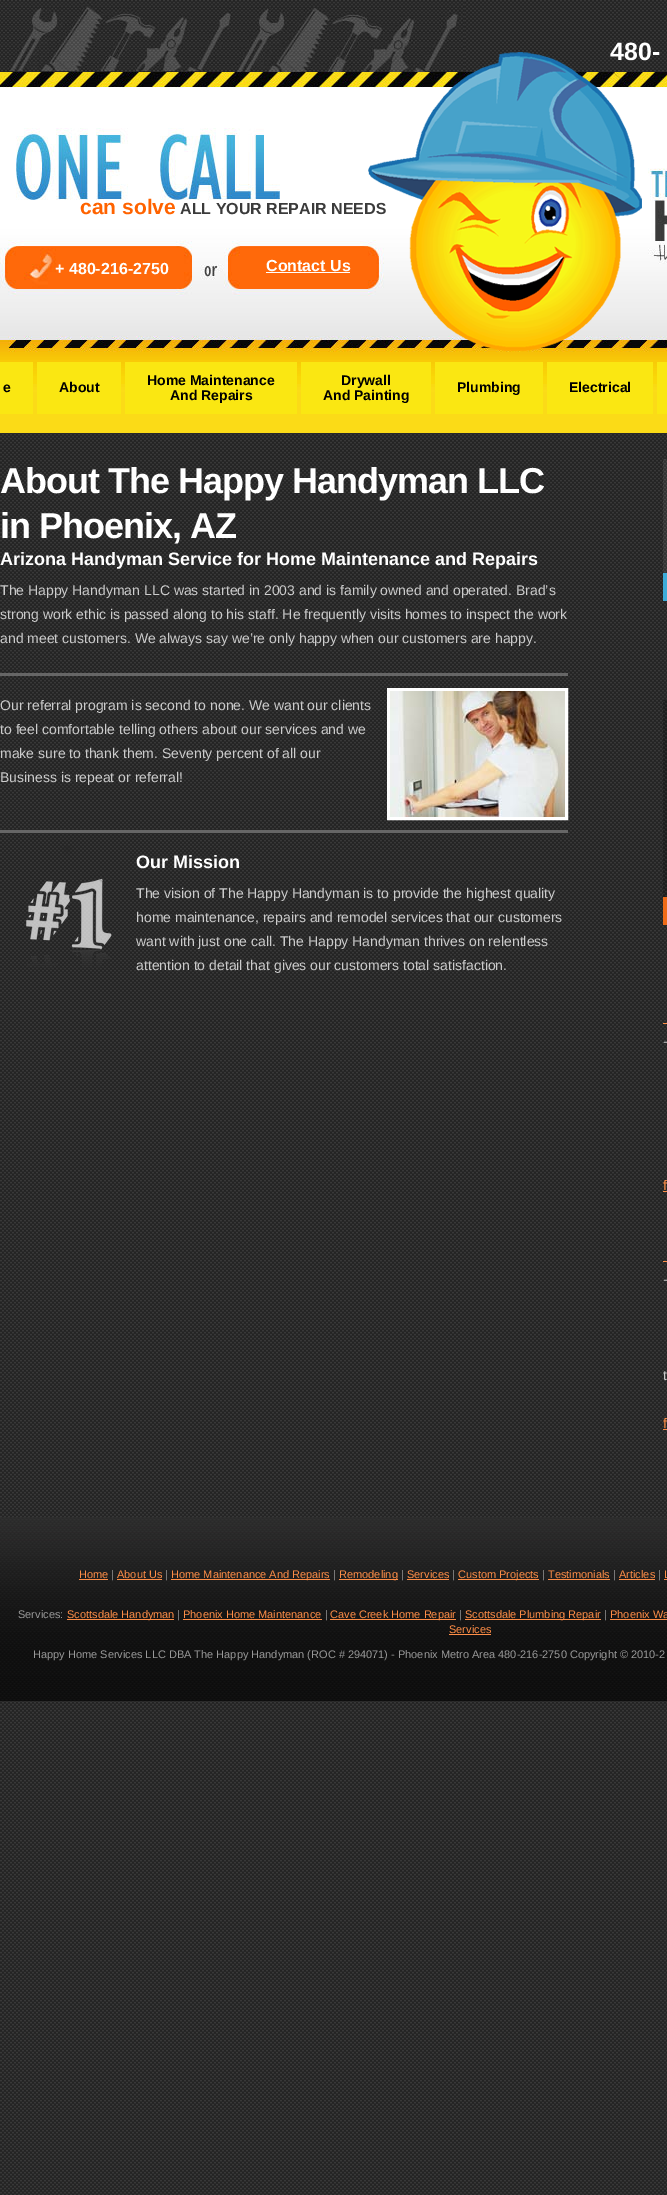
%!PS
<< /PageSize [667 2195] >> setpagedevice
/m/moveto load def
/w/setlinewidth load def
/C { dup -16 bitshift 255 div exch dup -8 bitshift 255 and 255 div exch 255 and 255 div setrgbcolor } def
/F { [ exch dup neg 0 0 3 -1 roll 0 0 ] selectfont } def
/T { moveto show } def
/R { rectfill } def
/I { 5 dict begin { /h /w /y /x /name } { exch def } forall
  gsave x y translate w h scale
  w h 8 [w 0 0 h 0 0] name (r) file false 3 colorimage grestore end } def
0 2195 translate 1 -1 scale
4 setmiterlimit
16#FFFFFF C
0 0 667 2195 R
(1.rgb) 0 0 667 2195 I
(2.rgb) 0 72 667 361 I
(3.rgb) 1 0 463 72 I
/LiberationSans-Bold 25 F
(480-) 610 60 T
/LiberationSans-Bold 21 F
16#FF6300 C
(can solve) 80 214 T
/LiberationSans-Bold 16 F
16#3B3B3B C
(ALL YOUR REPAIR NEEDS) 180 214 T
(4.rgb) 368 52 274 299 I
(5.rgb) 650 169 17 95 I
16#FFFFFF C
(+ 480-216-2750) 55 274 T
(Contact Us) 266 271 T
266 272 84 1 R
16#FAE712 C
0 362 33 52 R
/LiberationSans-Bold 14 F
16#000000 C
(e) 3 392 T
16#FAE712 C
37 362 84 52 R
16#000000 C
(About) 59 392 T
16#FAE712 C
125 362 172 52 R
16#000000 C
(Home Maintenance) 147 385 T
(And Repairs) 170 400 T
16#FAE712 C
301 362 130 52 R
16#000000 C
(Drywall) 341 385 T
(And Painting) 323 400 T
16#FAE712 C
435 362 108 52 R
16#000000 C
(Plumbing) 457 392 T
16#FAE712 C
547 362 106 52 R
16#000000 C
(Electrical) 569 392 T
16#FAE712 C
657 362 10 52 R
/LiberationSans-Bold 36 F
16#FFFFFF C
0 493 m -1 0 (About The Happy Handyman LLC) ashow
0 538 m -1 0 (in Phoenix, AZ) ashow
/LiberationSans-Bold 18 F
(Arizona Handyman Service for Home Maintenance and Repairs) 0 565 T
/LiberationSans-Regular 14 F
16#CCCCCC C
(The Happy Handyman LLC was started in 2003 and is family owned and operated. Brad’s) 0 595 T
(strong work ethic is passed along to his staff. He frequently visits homes to inspect the work) 0 619 T
(and meet customers. We always say we’re only happy when our customers are happy.) 0 643 T
16#666666 C
0 673 568 3 R
16#CCCCCC C
(Our referral program is second to none. We want our clients) 0 710 T
(to feel comfortable telling others about our services and we) 0 734 T
(make sure to thank them. Seventy percent of all our) 0 758 T
(Business is repeat or referral!) 0 782 T
16#FFFFFF C
3 w
388.5 689.5 178 129 rectstroke
(6.rgb) 390 691 175 126 I
16#666666 C
0 830 568 3 R
(7.rgb) 26 846 86 123 I
/LiberationSans-Bold 18 F
16#FFFFFF C
(Our Mission) 136 868 T
/LiberationSans-Regular 14 F
16#CCCCCC C
(The vision of The Happy Handyman is to provide the highest quality) 136 898 T
(home maintenance, repairs and remodel services that our customers) 136 922 T
(want with just one call. The Happy Handyman thrives on relentless) 136 946 T
(attention to detail that gives our customers total satisfaction.) 136 970 T
(8.rgb) 663 458 4 115 I
16#3DACD9 C
663 573 4 28 R
(9.rgb) 663 700 4 197 I
16#EF6B17 C
663 897 4 28 R
16#FF8E47 C
663 1023 4 1 R
/LiberationSans-Italic 14 F
16#CCCCCC C
(-) 663 1046 T
/LiberationSans-Regular 14 F
16#FF8E47 C
(f) 663 1190 T
663 1191 4 1 R
663 1261 4 1 R
/LiberationSans-Italic 14 F
16#CCCCCC C
(-) 663 1284 T
/LiberationSans-Regular 14 F
(t) 663 1380 T
16#FF8E47 C
(f) 663 1428 T
663 1429 4 1 R
(10.rgb) 0 1517 667 184 I
/LiberationSans-Regular 11 F
(Home) 79 1578 T
79 1579 29 1 R
16#999999 C
(|) 111 1578 T
16#FF8E47 C
(About Us) 117 1578 T
117 1579 45 1 R
16#999999 C
(|) 165 1578 T
16#FF8E47 C
171 1579 159 1 R
(Home Maintenance And Repairs) 171 1578 T
16#999999 C
(|) 333 1578 T
16#FF8E47 C
339 1579 59 1 R
(Remodeling) 339 1578 T
16#999999 C
(|) 401 1578 T
16#FF8E47 C
(Services) 407 1578 T
407 1579 42 1 R
16#999999 C
(|) 452 1578 T
16#FF8E47 C
458 1579 81 1 R
(Custom Projects) 458 1578 T
16#999999 C
(|) 542 1578 T
16#FF8E47 C
(Testimonials) 548 1578 T
548 1579 62 1 R
16#999999 C
(|) 613 1578 T
16#FF8E47 C
(Articles) 619 1578 T
619 1579 36 1 R
16#999999 C
(|) 658 1578 T
16#FF8E47 C
(L) 664 1578 T
664 1579 3 1 R
16#999999 C
(Services:) 18 1618 T
16#FF8E47 C
67 1619 107 1 R
(Scottsdale Handyman) 67 1618 T
16#999999 C
(|) 177 1618 T
16#FF8E47 C
(Phoenix Home Maintenance) 183 1618 T
183 1619 139 1 R
16#999999 C
(|) 325 1618 T
16#FF8E47 C
330 1619 126 1 R
(Cave Creek Home Repair) 330 1618 T
16#999999 C
(|) 459 1618 T
16#FF8E47 C
465 1619 136 1 R
(Scottsdale Plumbing Repair) 465 1618 T
16#999999 C
(|) 604 1618 T
16#FF8E47 C
(Phoenix Wa) 610 1618 T
610 1619 57 1 R
(Services) 449 1633 T
449 1634 42 1 R
16#999999 C
(Happy Home Services LLC DBA The Happy Handyman \(ROC # 294071\) - Phoenix Metro Area 480-216-2750 Copyright © 2010-2) 33 1658 T
showpage
